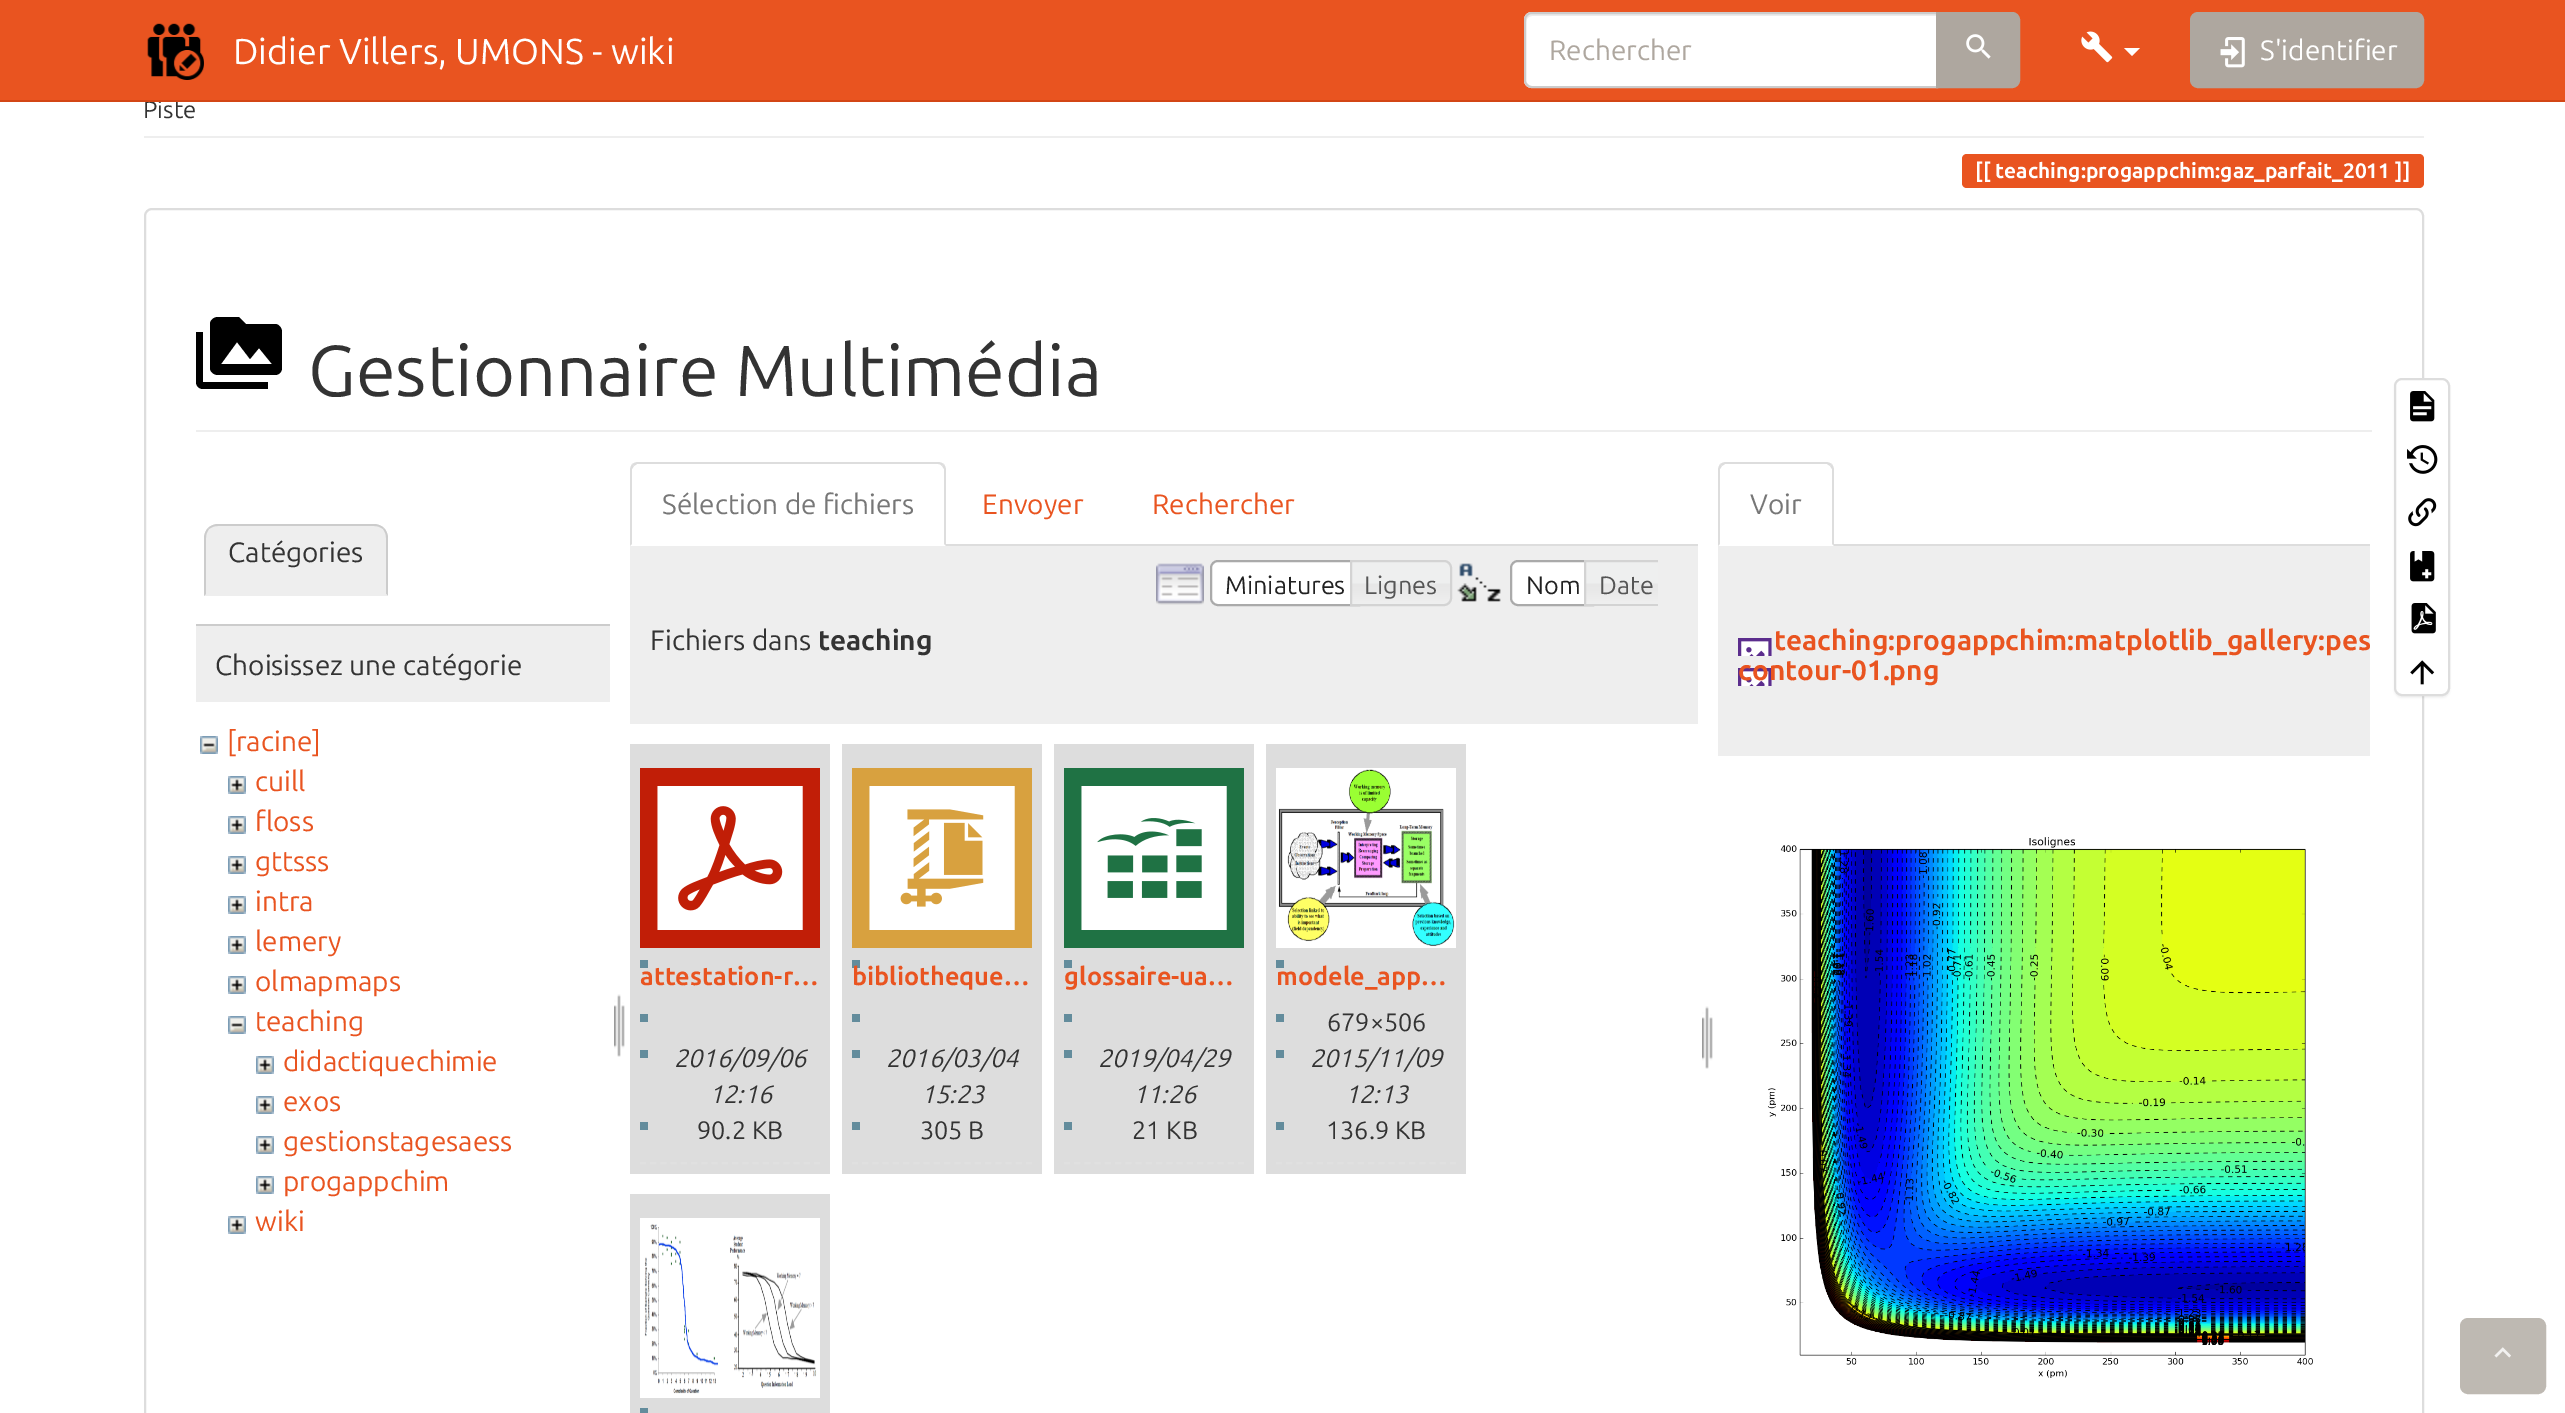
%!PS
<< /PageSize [2565 1413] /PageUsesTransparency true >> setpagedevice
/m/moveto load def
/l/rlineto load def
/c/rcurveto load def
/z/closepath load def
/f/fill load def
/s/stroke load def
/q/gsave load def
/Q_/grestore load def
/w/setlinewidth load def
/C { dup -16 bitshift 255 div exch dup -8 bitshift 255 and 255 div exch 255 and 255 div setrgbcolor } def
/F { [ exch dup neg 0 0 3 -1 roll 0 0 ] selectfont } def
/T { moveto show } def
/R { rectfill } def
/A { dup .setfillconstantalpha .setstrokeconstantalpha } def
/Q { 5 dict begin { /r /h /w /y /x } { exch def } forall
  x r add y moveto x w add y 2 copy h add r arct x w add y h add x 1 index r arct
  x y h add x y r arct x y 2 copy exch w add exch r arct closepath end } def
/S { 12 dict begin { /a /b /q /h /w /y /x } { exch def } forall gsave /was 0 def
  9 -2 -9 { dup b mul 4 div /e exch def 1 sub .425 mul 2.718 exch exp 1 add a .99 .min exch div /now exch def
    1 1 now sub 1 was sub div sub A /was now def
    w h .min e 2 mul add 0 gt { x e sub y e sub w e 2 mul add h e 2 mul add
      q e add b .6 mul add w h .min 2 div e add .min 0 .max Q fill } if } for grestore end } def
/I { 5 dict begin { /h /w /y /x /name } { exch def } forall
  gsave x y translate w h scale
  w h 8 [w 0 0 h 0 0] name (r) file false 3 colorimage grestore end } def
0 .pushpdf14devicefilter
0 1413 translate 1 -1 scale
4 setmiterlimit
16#FFFFFF C
0 0 2565 1413 R
16#E95420 C
0 0 2565 100 R
/Ubuntu-Regular 24 F
16#333333 C
(Piste) 143 118 T
16#D34615 C
0 100 2565 2 R
(1.rgb) 147 23 57 57 I
/Ubuntu-Regular 36 F
16#FFFFFF C
(Didier Villers, UMONS - wiki) 233 64 T
1532 12 m 406 0 l 0 76 l -406 0 l -4.5 0 -8 -3.5 -8 -8 c 0 -60 l 0 -4.5 3.5 -8 8 -8 c z f
16#ECECEC C
1532 16 m 404 0 l 0 -2 l -404 0 l -3 0 -6 3 -6 6 c 0 2 l 0 -3 3 -6 6 -6 c z f
16#CCCCCC C
2 w
1532 13 m 405 0 l 0 74 l -405 0 l -4 0 -7 -3 -7 -7 c 0 -60 l 0 -4 3 -7 7 -7 c z s
/Ubuntu-Regular 28 F
16#AEA79F C
(Rechercher) 1549 60 T
1937 13 m 75 0 l 4 0 7 3 7 7 c 0 60 l 0 4 -3 7 -7 7 c -75 0 l z q f Q_
s
(2.rgb) 1966 34 25 25 I
(3.rgb) 2081 31 32 32 I
16#FFFFFF C
2124 48 m 16 0 l -8 8 l z f
16#AEA79F C
2191 13 232 74 7 Q q f Q_
s
(4.rgb) 2220 37 25 31 I
16#FFFFFF C
(S'identifier) 2260 60 T
16#EEEEEE C
144 136 2280 2 R
16#E95420 C
1967 154 m 29 0 l 0 34 l -29 0 l -3 0 -5 -2 -5 -5 c 0 -24 l 0 -3 2 -5 5 -5 c z f
1996 154 394 34 R
2390 154 m 29 0 l 3 0 5 2 5 5 c 0 24 l 0 3 -2 5 -5 5 c -29 0 l z f
/Ubuntu-Bold 21 F
16#FFFFFF C
([[ teaching:progappchim:gaz_parfait_2011 ]]) 1975 178 T
16#DDDDDD C
145 209 2278 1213 7 Q s
16#EEEEEE C
196 430 2176 2 R
16#000000 C
221 364 m 16 -22 l 13 17 l 9 -11 l 13 16 l 275 324 m -29 0 l -7 -7 l -21 0 l -4 0 -8 3 -8 7 c 0 44 l 0 4 4 7 8 7 c 57 0 l 4 0 7 -3 7 -7 c 0 -36 l 0 -4 -3 -8 -7 -8 c 203 332 m -7 0 l 0 50 l 0 4 3 7 7 7 c 65 0 l 0 -7 l -65 0 l z f
/Ubuntu-Regular 72 F
16#333333 C
(Gestionnaire Multimédia) 308 396 T
16#EEEEEE C
218 524 m 156 0 l 7.5 0 14 6.5 14 14 c 0 58 l -184 0 l 0 -58 l 0 -7.5 6.5 -14 14 -14 c z f
16#CCCCCC C
218 524 m -4 0 -8 2 -10 4 c 1 1 l 3 -2 5 -3 9 -3 c 156 0 l 4 0 6 1 9 3 c 1 -1 l -2 -2 -6 -4 -10 -4 c z f
388 596 m 0 -58 l 0 -4 -2 -8 -4 -10 c -1 1 l 2 3 3 5 3 9 c 0 56 l z f
16#EEEEEE C
388 596 m -2 -2 l -180 0 l -2 2 l z f
16#CCCCCC C
204 596 m 2 -2 l 0 -56 l 0 -4 1 -6 3 -9 c -1 -1 l -2 2 -4 6 -4 10 c z f
/Ubuntu-Regular 28 F
16#333333 C
(Catégories) 228 562 T
16#EEEEEE C
196 626 414 76 R
16#CCCCCC C
196 624 414 2 R
16#333333 C
(Choisissez une catégorie) 215 675 T
(5.rgb) 200 736 18 18 I
16#E95420 C
([racine]) 227 751 T
(6.rgb) 228 776 18 18 I
(cuill) 255 791 T
(6.rgb) 228 816 18 18 I
(floss) 255 831 T
(6.rgb) 228 856 18 18 I
(gttsss) 255 871 T
(6.rgb) 228 896 18 18 I
(intra) 255 911 T
(6.rgb) 228 936 18 18 I
(lemery) 255 951 T
(6.rgb) 228 976 18 18 I
(olmapmaps) 255 991 T
(5.rgb) 228 1016 18 18 I
(teaching) 255 1031 T
(6.rgb) 256 1056 18 18 I
(didactiquechimie) 283 1071 T
(6.rgb) 256 1096 18 18 I
(exos) 283 1111 T
(6.rgb) 256 1136 18 18 I
(gestionstagesaess) 283 1151 T
(6.rgb) 256 1176 18 18 I
(progappchim) 283 1191 T
(6.rgb) 228 1216 18 18 I
(wiki) 255 1231 T
(7.rgb) 614 994 11 63 I
16#DDDDDD C
946 544 752 2 R
638 462 m -2 0 -4 1 -6 2 c 2 2 l 3 -2 l 301 0 l 2 0 3 1 4 2 c 2 -2 l -2 -1 -4 -2 -6 -2 c z f
946 546 m 0 -76 l 0 -2 -1 -4 -2 -6 c -2 2 l 2 3 l 0 75 l z f
630 546 m 2 -2 l 0 -75 l 2 -3 l -2 -2 l -1 2 -2 4 -2 6 c z f
16#777777 C
(Sélection de fichiers) 662 514 T
16#E95420 C
(Envoyer) 982 514 T
(Rechercher) 1152 514 T
16#EEEEEE C
630 546 1068 178 R
(8.rgb) 1156 563 48 42 I
16#FFFFFF C
1218 560 m 142 0 l 0 46 l -142 0 l -4.5 0 -8 -3.5 -8 -8 c 0 -30 l 0 -4.5 3.5 -8 8 -8 c z f
(9.rgb) 1210 560 6 46 I
16#AAAAAA C
1218 561 m 141 0 l 0 44 l -141 0 l -4 0 -7 -3 -7 -7 c 0 -30 l 0 -4 3 -7 7 -7 c z s
/Ubuntu-Regular 25.25 F
16#212121 C
(Miniatures) 1225 594 T
(10.rgb) 1352 560 100 46 I
16#D3D3D3 C
1351 561 m 93 0 l 4 0 7 3 7 7 c 0 30 l 0 4 -3 7 -7 7 c -93 0 l z s
16#555555 C
(Lignes) 1364 594 T
(11.rgb) 1457 563 44 39 I
16#FFFFFF C
1518 560 m 76 0 l 0 46 l -76 0 l -4.5 0 -8 -3.5 -8 -8 c 0 -30 l 0 -4.5 3.5 -8 8 -8 c z f
(9.rgb) 1510 560 6 46 I
16#AAAAAA C
1518 561 m 75 0 l 0 44 l -75 0 l -4 0 -7 -3 -7 -7 c 0 -30 l 0 -4 3 -7 7 -7 c z s
16#212121 C
(Nom) 1526 594 T
(12.rgb) 1586 562 72 42 I
q
1140 560 518 46 rectclip
16#D3D3D3 C
1585 561 m 75 0 l 4 0 7 3 7 7 c 0 30 l 0 4 -3 7 -7 7 c -75 0 l z s
Q_
16#555555 C
(Date) 1599 594 T
/Ubuntu-Regular 28 F
16#333333 C
(Fichiers dans) 650 650 T
/Ubuntu-Bold 28 F
(teaching) 818 650 T
16#DDDDDD C
630 744 200 430 R
16#E0E0E0 C
[6 4.24] 0 setdash
640 1163 m 180 0 l s
(13.rgb) 640 768 180 180 I
16#638C9C C
640 960 8 8 R
/Ubuntu-Bold 25.25 F
16#E95420 C
(attestation-r…) 640 985 T
16#638C9C C
640 1014 8 8 R
640 1050 8 8 R
/Ubuntu-Italic 25.25 F
16#333333 C
(2016/09/06) 674 1067 T
(12:16) 709 1103 T
16#638C9C C
640 1122 8 8 R
/Ubuntu-Regular 25.25 F
16#333333 C
(90.2 KB) 697 1139 T
16#DDDDDD C
842 744 200 430 R
16#E0E0E0 C
852 1163 m 180 0 l s
(14.rgb) 852 768 180 180 I
16#638C9C C
852 960 8 8 R
/Ubuntu-Bold 25.25 F
16#E95420 C
(bibliotheque…) 852 985 T
16#638C9C C
852 1014 8 8 R
852 1050 8 8 R
/Ubuntu-Italic 25.25 F
16#333333 C
(2016/03/04) 886 1067 T
(15:23) 921 1103 T
16#638C9C C
852 1122 8 8 R
/Ubuntu-Regular 25.25 F
16#333333 C
(305 B) 920 1139 T
16#DDDDDD C
1054 744 200 430 R
16#E0E0E0 C
1064 1163 m 180 0 l s
(15.rgb) 1064 768 180 180 I
16#638C9C C
1064 960 8 8 R
/Ubuntu-Bold 25.25 F
16#E95420 C
(glossaire-ua…) 1064 985 T
16#638C9C C
1064 1014 8 8 R
1064 1050 8 8 R
/Ubuntu-Italic 25.25 F
16#333333 C
(2019/04/29) 1098 1067 T
(11:26) 1133 1103 T
16#638C9C C
1064 1122 8 8 R
/Ubuntu-Regular 25.25 F
16#333333 C
(21 KB) 1132 1139 T
16#DDDDDD C
1266 744 200 430 R
16#E0E0E0 C
1276 1163 m 180 0 l s
(16.rgb) 1276 768 180 180 I
16#638C9C C
1276 960 8 8 R
/Ubuntu-Bold 25.25 F
16#E95420 C
(modele_app…) 1276 985 T
16#638C9C C
1276 1014 8 8 R
/Ubuntu-Regular 25.25 F
16#333333 C
(679×506) 1327 1031 T
16#638C9C C
1276 1050 8 8 R
/Ubuntu-Italic 25.25 F
16#333333 C
(2015/11/09) 1310 1067 T
(12:13) 1345 1103 T
16#638C9C C
1276 1122 8 8 R
/Ubuntu-Regular 25.25 F
16#333333 C
(136.9 KB) 1326 1139 T
16#DDDDDD C
630 1194 200 219 R
(17.rgb) 640 1218 180 180 I
16#638C9C C
640 1408 8 5 R
(7.rgb) 1702 1006 11 63 I
16#DDDDDD C
1834 544 536 2 R
1726 462 m -2 0 -4 1 -6 2 c 2 2 l 3 -2 l 102 0 l 3 2 l 2 -2 l -2 -1 -4 -2 -6 -2 c z f
1834 546 m 0 -76 l 0 -2 -1 -4 -2 -6 c -2 2 l 2 3 l 0 75 l z f
1718 546 m 2 -2 l 0 -75 l 2 -3 l -2 -2 l -1 2 -2 4 -2 6 c z f
/Ubuntu-Regular 28 F
16#777777 C
(Voir) 1750 514 T
16#EEEEEE C
1718 546 652 210 R
(18.rgb) 1738 638 34 48 I
/Ubuntu-Bold 28 F
16#E95420 C
(teaching:progappchim:matplotlib_gallery:pes) 1774 650 T
(contour-01.png) 1738 680 T
(19.rgb) 1768 837 545 541 I
16#000000 C
2394 380 56 318 8 1 .05 S
16#FFFFFF C
2395 379 54 316 7 Q q f Q_
16#DDDDDD C
[] 0 setdash
s
(20.rgb) 2410 391 25 31 I
(21.rgb) 2407 445 31 29 I
(22.rgb) 2408 498 29 29 I
(23.rgb) 2410 551 25 31 I
(24.rgb) 2411 603 25 31 I
(25.rgb) 2410 660 25 25 I
16#BEB9B2 C
2461 1319 84 74 7 Q q f Q_
s
(26.rgb) 2494 1347 17 11 I
.poppdf14devicefilter showpage
